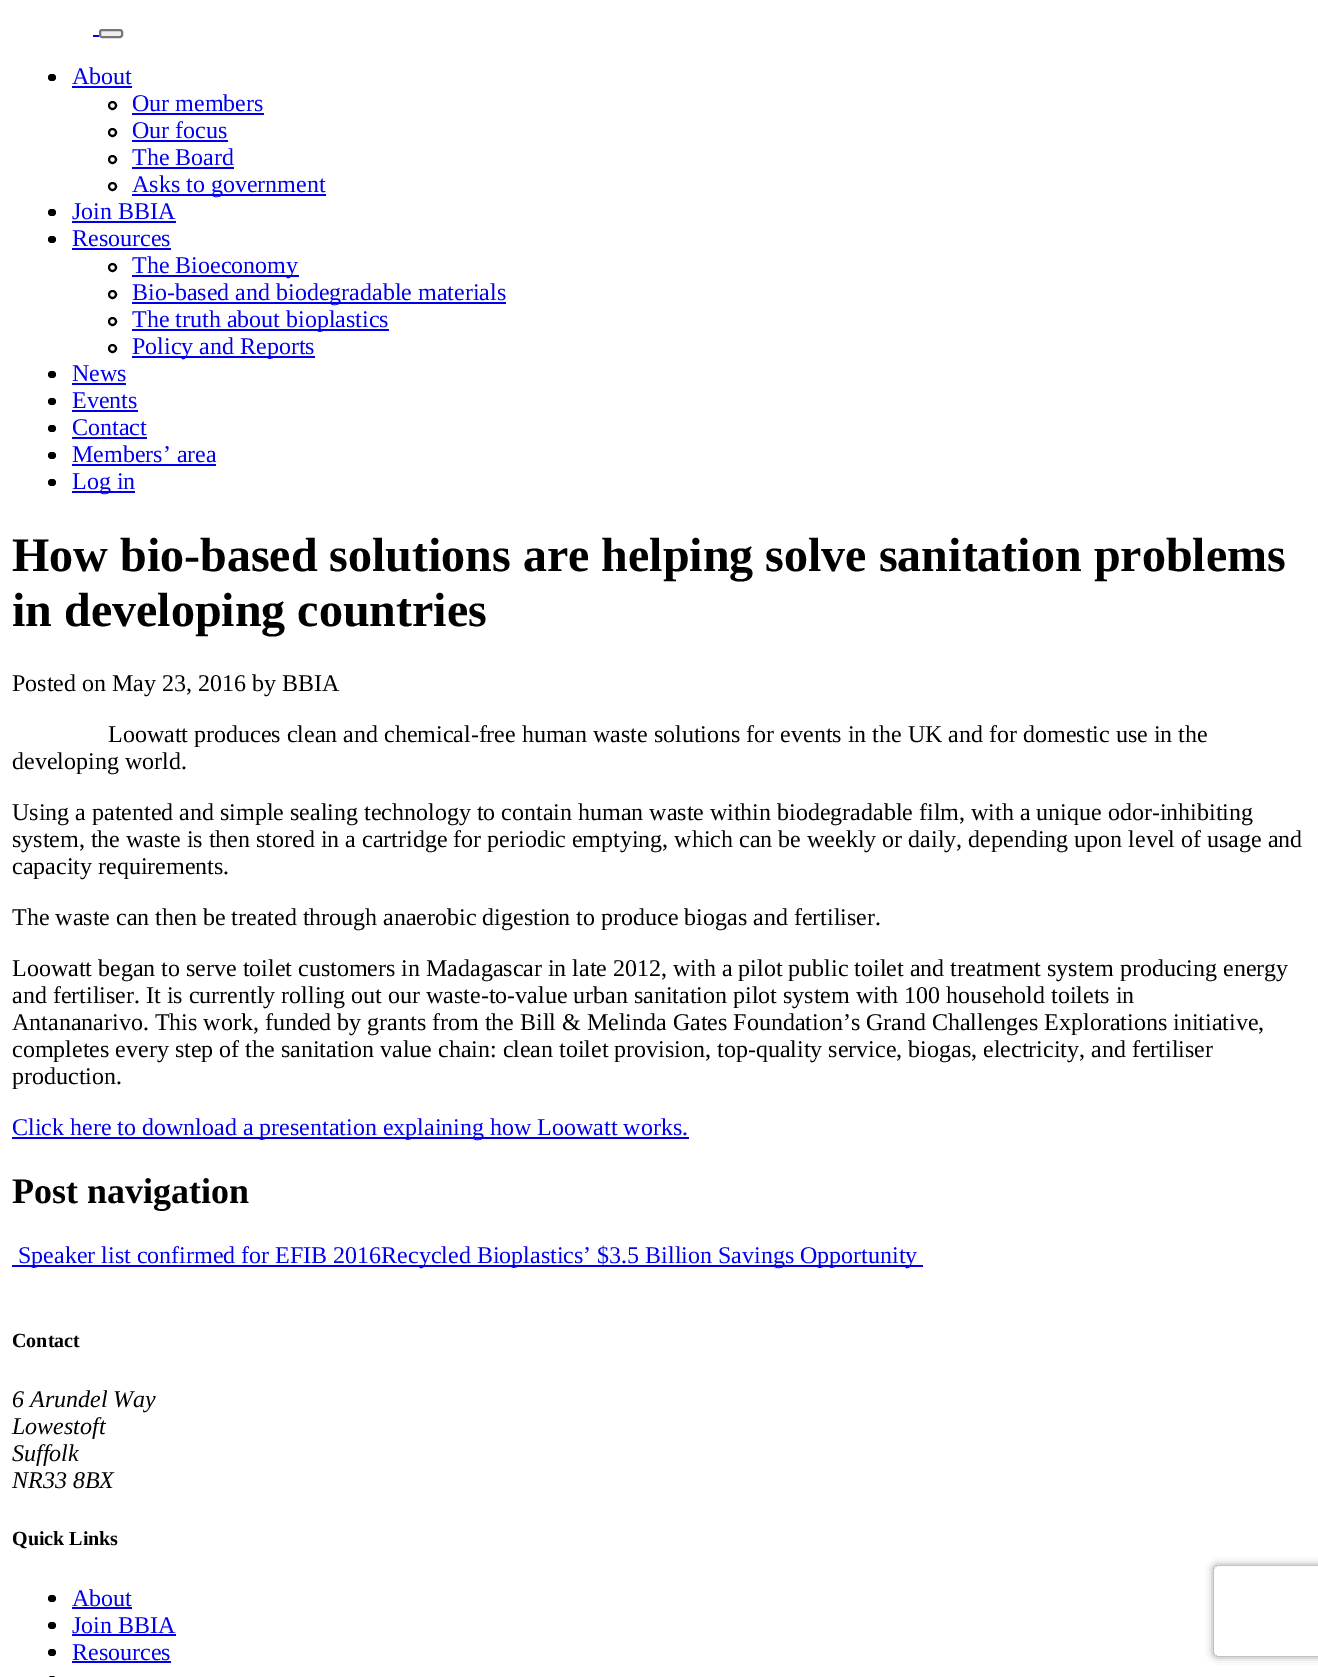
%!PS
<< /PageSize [1318 1677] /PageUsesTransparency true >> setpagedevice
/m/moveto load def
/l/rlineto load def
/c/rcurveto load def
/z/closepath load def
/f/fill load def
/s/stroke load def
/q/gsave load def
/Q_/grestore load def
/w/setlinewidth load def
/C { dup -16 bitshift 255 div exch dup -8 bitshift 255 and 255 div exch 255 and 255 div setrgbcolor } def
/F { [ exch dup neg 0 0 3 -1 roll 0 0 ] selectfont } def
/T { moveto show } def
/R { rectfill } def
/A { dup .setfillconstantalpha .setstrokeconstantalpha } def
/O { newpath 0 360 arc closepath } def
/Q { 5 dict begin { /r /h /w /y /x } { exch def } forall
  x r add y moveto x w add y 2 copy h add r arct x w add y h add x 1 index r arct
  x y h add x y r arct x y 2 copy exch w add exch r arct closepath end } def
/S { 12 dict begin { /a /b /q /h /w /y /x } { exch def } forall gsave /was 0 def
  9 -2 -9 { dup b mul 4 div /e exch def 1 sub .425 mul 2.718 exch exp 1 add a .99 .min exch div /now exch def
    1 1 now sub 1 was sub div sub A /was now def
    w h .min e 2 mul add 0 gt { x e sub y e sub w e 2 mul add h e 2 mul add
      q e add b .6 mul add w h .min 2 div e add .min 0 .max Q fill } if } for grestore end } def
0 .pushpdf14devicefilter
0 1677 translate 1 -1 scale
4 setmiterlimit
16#FFFFFF C
0 0 1318 1677 R
16#0000EE C
93 35 6 2 R
16#EFEFEF C
100 30 22 7 2 Q q f Q_
16#767676 C
2 w
s
16#000000 C
48 74 8 7 3.5 Q f
/LiberationSerif-Regular 24 F
16#0000EE C
(About) 72 84 T
72 86 60 2 R
16#000000 C
112.5 105.5 3.5 O s
16#0000EE C
(Our members) 132 111 T
132 113 132 2 R
16#000000 C
112.5 132.5 3.5 O s
16#0000EE C
(Our focus) 132 138 T
132 140 96 2 R
16#000000 C
112.5 159.5 3.5 O s
16#0000EE C
(The Board) 132 165 T
132 167 102 2 R
16#000000 C
112.5 186.5 3.5 O s
16#0000EE C
132 194 194 2 R
(Asks to government) 132 192 T
16#000000 C
48 209 8 7 3.5 Q f
16#0000EE C
(Join BBIA) 72 219 T
72 221 104 2 R
16#000000 C
48 236 8 7 3.5 Q f
16#0000EE C
(Resources) 72 246 T
72 248 99 2 R
16#000000 C
112.5 267.5 3.5 O s
16#0000EE C
132 275 167 2 R
(The Bioeconomy) 132 273 T
16#000000 C
112.5 294.5 3.5 O s
16#0000EE C
132 302 374 2 R
(Bio-based and biodegradable materials) 132 300 T
16#000000 C
112.5 321.5 3.5 O s
16#0000EE C
132 329 257 2 R
(The truth about bioplastics) 132 327 T
16#000000 C
112.5 348.5 3.5 O s
16#0000EE C
132 356 183 2 R
(Policy and Reports) 132 354 T
16#000000 C
48 371 8 7 3.5 Q f
16#0000EE C
(News) 72 381 T
72 383 54 2 R
16#000000 C
48 398 8 7 3.5 Q f
16#0000EE C
(Events) 72 408 T
72 410 66 2 R
16#000000 C
48 425 8 7 3.5 Q f
16#0000EE C
(Contact) 72 435 T
72 437 75 2 R
16#000000 C
48 452 8 7 3.5 Q f
16#0000EE C
(Members’ area) 72 462 T
72 464 144 2 R
16#000000 C
48 479 8 7 3.5 Q f
16#0000EE C
72 491 63 2 R
(Log in) 72 489 T
/LiberationSerif-Bold 48 F
16#000000 C
(How bio-based solutions are helping solve sanitation problems) 12 571 T
(in developing countries) 12 626 T
/LiberationSerif-Regular 24 F
(Posted on May 23, 2016 by BBIA) 12 691 T
(Loowatt produces clean and chemical-free human waste solutions for events in the UK and for domestic use in the) 108 742 T
(developing world.) 12 769 T
(Using a patented and simple sealing technology to contain human waste within biodegradable film, with a unique odor-inhibiting) 12 820 T
(system, the waste is then stored in a cartridge for periodic emptying, which can be weekly or daily, depending upon level of usage and) 12 847 T
(capacity requirements.) 12 874 T
(The waste can then be treated through anaerobic digestion to produce biogas and fertiliser.) 12 925 T
(Loowatt began to serve toilet customers in Madagascar in late 2012, with a pilot public toilet and treatment system producing energy) 12 976 T
(and fertiliser. It is currently rolling out our waste-to-value urban sanitation pilot system with 100 household toilets in) 12 1003 T
(Antananarivo. This work, funded by grants from the Bill & Melinda Gates Foundation’s Grand Challenges Explorations initiative,) 12 1030 T
(completes every step of the sanitation value chain: clean toilet provision, top-quality service, biogas, electricity, and fertiliser) 12 1057 T
(production.) 12 1084 T
16#0000EE C
12 1137 677 2 R
(Click here to download a presentation explaining how Loowatt works.) 12 1135 T
/LiberationSerif-Bold 36 F
16#000000 C
(Post navigation) 12 1203 T
16#0000EE C
12 1265 911 2 R
/LiberationSerif-Regular 24 F
(Speaker list confirmed for EFIB 2016Recycled Bioplastics’ $3.5 Billion Savings Opportunity) 18 1263 T
/LiberationSerif-Bold 20 F
16#000000 C
(Contact) 12 1347 T
/LiberationSerif-Italic 24 F
(6 Arundel Way) 12 1407 T
(Lowestoft) 12 1434 T
(Suffolk) 12 1461 T
(NR33 8BX) 12 1488 T
/LiberationSerif-Bold 20 F
(Quick Links) 12 1545 T
48 1595 8 7 3.5 Q f
/LiberationSerif-Regular 24 F
16#0000EE C
(About) 72 1606 T
72 1607 60 2 R
16#000000 C
48 1622 8 7 3.5 Q f
16#0000EE C
(Join BBIA) 72 1633 T
72 1634 104 2 R
16#000000 C
48 1649 8 7 3.5 Q f
16#0000EE C
(Resources) 72 1660 T
72 1661 99 2 R
16#000000 C
48 1676 8 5 3.5 Q f
q
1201 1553 m 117 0 l 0 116 l -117 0 l z 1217 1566 m 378 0 l 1.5 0 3 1.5 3 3 c 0 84 l 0 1.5 -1.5 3 -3 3 c -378 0 l -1.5 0 -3 -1.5 -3 -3 c 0 -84 l 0 -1.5 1.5 -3 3 -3 c z eoclip newpath
16#808080 C
1214 1566 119 90 3 4 1 S
Q_
.poppdf14devicefilter showpage
